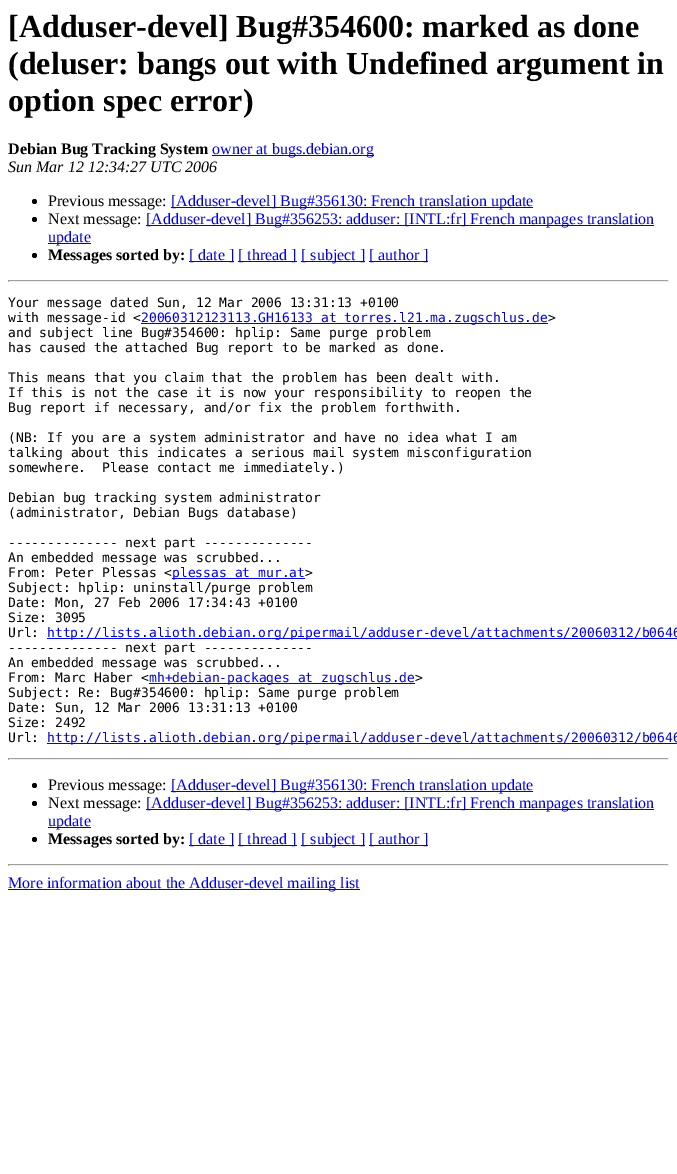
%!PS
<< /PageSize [677 1174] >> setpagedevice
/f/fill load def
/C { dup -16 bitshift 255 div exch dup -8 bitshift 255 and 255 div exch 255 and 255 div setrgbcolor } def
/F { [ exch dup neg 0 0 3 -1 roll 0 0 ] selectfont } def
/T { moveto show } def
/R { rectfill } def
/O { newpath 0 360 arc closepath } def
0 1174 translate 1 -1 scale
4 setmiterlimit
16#FFFFFF C
0 0 677 1174 R
/LiberationSerif-Bold 32 F
16#000000 C
([Adduser-devel] Bug#354600: marked as done) 8 37 T
(\(deluser: bangs out with Undefined argument in) 8 74 T
(option spec error\)) 8 111 T
/LiberationSerif-Bold 16 F
(Debian Bug Tracking System) 8 154 T
16#0000EE C
212 155 162 1 R
/LiberationSerif-Regular 16 F
(owner at bugs.debian.org) 212 154 T
/LiberationSerif-Italic 16 F
16#000000 C
(Sun Mar 12 12:34:27 UTC 2006) 8 172 T
34.5 201.5 2.5 O f
/LiberationSerif-Regular 16 F
(Previous message:) 48 206 T
16#0000EE C
171 207 362 1 R
([Adduser-devel] Bug#356130: French translation update) 171 206 T
16#000000 C
34.5 219.5 2.5 O f
(Next message:) 48 224 T
16#0000EE C
146 225 508 1 R
([Adduser-devel] Bug#356253: adduser: [INTL:fr] French manpages translation) 146 224 T
48 243 43 1 R
(update) 48 242 T
16#000000 C
34.5 255.5 2.5 O f
/LiberationSerif-Bold 16 F
(Messages sorted by:) 48 260 T
16#0000EE C
189 261 45 1 R
/LiberationSerif-Regular 16 F
([ date ]) 189 260 T
238 261 59 1 R
([ thread ]) 238 260 T
301 261 64 1 R
([ subject ]) 301 260 T
369 261 59 1 R
([ author ]) 369 260 T
16#9F9F9F C
8 280 661 1 R
16#EEEEEE C
668 280 1 2 R
8 281 661 1 R
16#9F9F9F C
8 280 1 2 R
/DejaVuSansMono-Regular 13 F
16#000000 C
(Your message dated Sun, 12 Mar 2006 13:31:13 +0100) 8 307 T
(with message-id <) 8 322 T
16#0000EE C
141 323 407 1 R
(20060312123113.GH16133 at torres.l21.ma.zugschlus.de) 141 322 T
16#000000 C
(>) 548 322 T
(and subject line Bug#354600: hplip: Same purge problem) 8 337 T
(has caused the attached Bug report to be marked as done.) 8 352 T
(This means that you claim that the problem has been dealt with.) 8 382 T
(If this is not the case it is now your responsibility to reopen the) 8 397 T
(Bug report if necessary, and/or fix the problem forthwith.) 8 412 T
(\(NB: If you are a system administrator and have no idea what I am) 8 442 T
(talking about this indicates a serious mail system misconfiguration) 8 457 T
(somewhere.  Please contact me immediately.\)) 8 472 T
(Debian bug tracking system administrator) 8 502 T
(\(administrator, Debian Bugs database\)) 8 517 T
(-------------- next part --------------) 8 547 T
(An embedded message was scrubbed...) 8 562 T
(From: Peter Plessas <) 8 577 T
16#0000EE C
172 578 133 1 R
(plessas at mur.at) 172 577 T
16#000000 C
(>) 305 577 T
(Subject: hplip: uninstall/purge problem) 8 592 T
(Date: Mon, 27 Feb 2006 17:34:43 +0100) 8 607 T
(Size: 3095) 8 622 T
(Url:) 8 637 T
16#0000EE C
47 638 630 1 R
(http://lists.alioth.debian.org/pipermail/adduser-devel/attachments/20060312/b0646) 47 637 T
16#000000 C
(-------------- next part --------------) 8 652 T
(An embedded message was scrubbed...) 8 667 T
(From: Marc Haber <) 8 682 T
16#0000EE C
149 683 266 1 R
(mh+debian-packages at zugschlus.de) 149 682 T
16#000000 C
(>) 415 682 T
(Subject: Re: Bug#354600: hplip: Same purge problem) 8 697 T
(Date: Sun, 12 Mar 2006 13:31:13 +0100) 8 712 T
(Size: 2492) 8 727 T
(Url:) 8 742 T
16#0000EE C
47 743 630 1 R
(http://lists.alioth.debian.org/pipermail/adduser-devel/attachments/20060312/b0646) 47 742 T
16#9F9F9F C
8 758 661 1 R
16#EEEEEE C
668 758 1 2 R
8 759 661 1 R
16#9F9F9F C
8 758 1 2 R
16#000000 C
34.5 785.5 2.5 O f
/LiberationSerif-Regular 16 F
(Previous message:) 48 790 T
16#0000EE C
171 791 362 1 R
([Adduser-devel] Bug#356130: French translation update) 171 790 T
16#000000 C
34.5 803.5 2.5 O f
(Next message:) 48 808 T
16#0000EE C
146 809 508 1 R
([Adduser-devel] Bug#356253: adduser: [INTL:fr] French manpages translation) 146 808 T
48 827 43 1 R
(update) 48 826 T
16#000000 C
34.5 839.5 2.5 O f
/LiberationSerif-Bold 16 F
(Messages sorted by:) 48 844 T
16#0000EE C
189 845 45 1 R
/LiberationSerif-Regular 16 F
([ date ]) 189 844 T
238 845 59 1 R
([ thread ]) 238 844 T
301 845 64 1 R
([ subject ]) 301 844 T
369 845 59 1 R
([ author ]) 369 844 T
16#9F9F9F C
8 864 661 1 R
16#EEEEEE C
668 864 1 2 R
8 865 661 1 R
16#9F9F9F C
8 864 1 2 R
16#0000EE C
8 889 352 1 R
(More information about the Adduser-devel mailing list) 8 888 T
showpage
